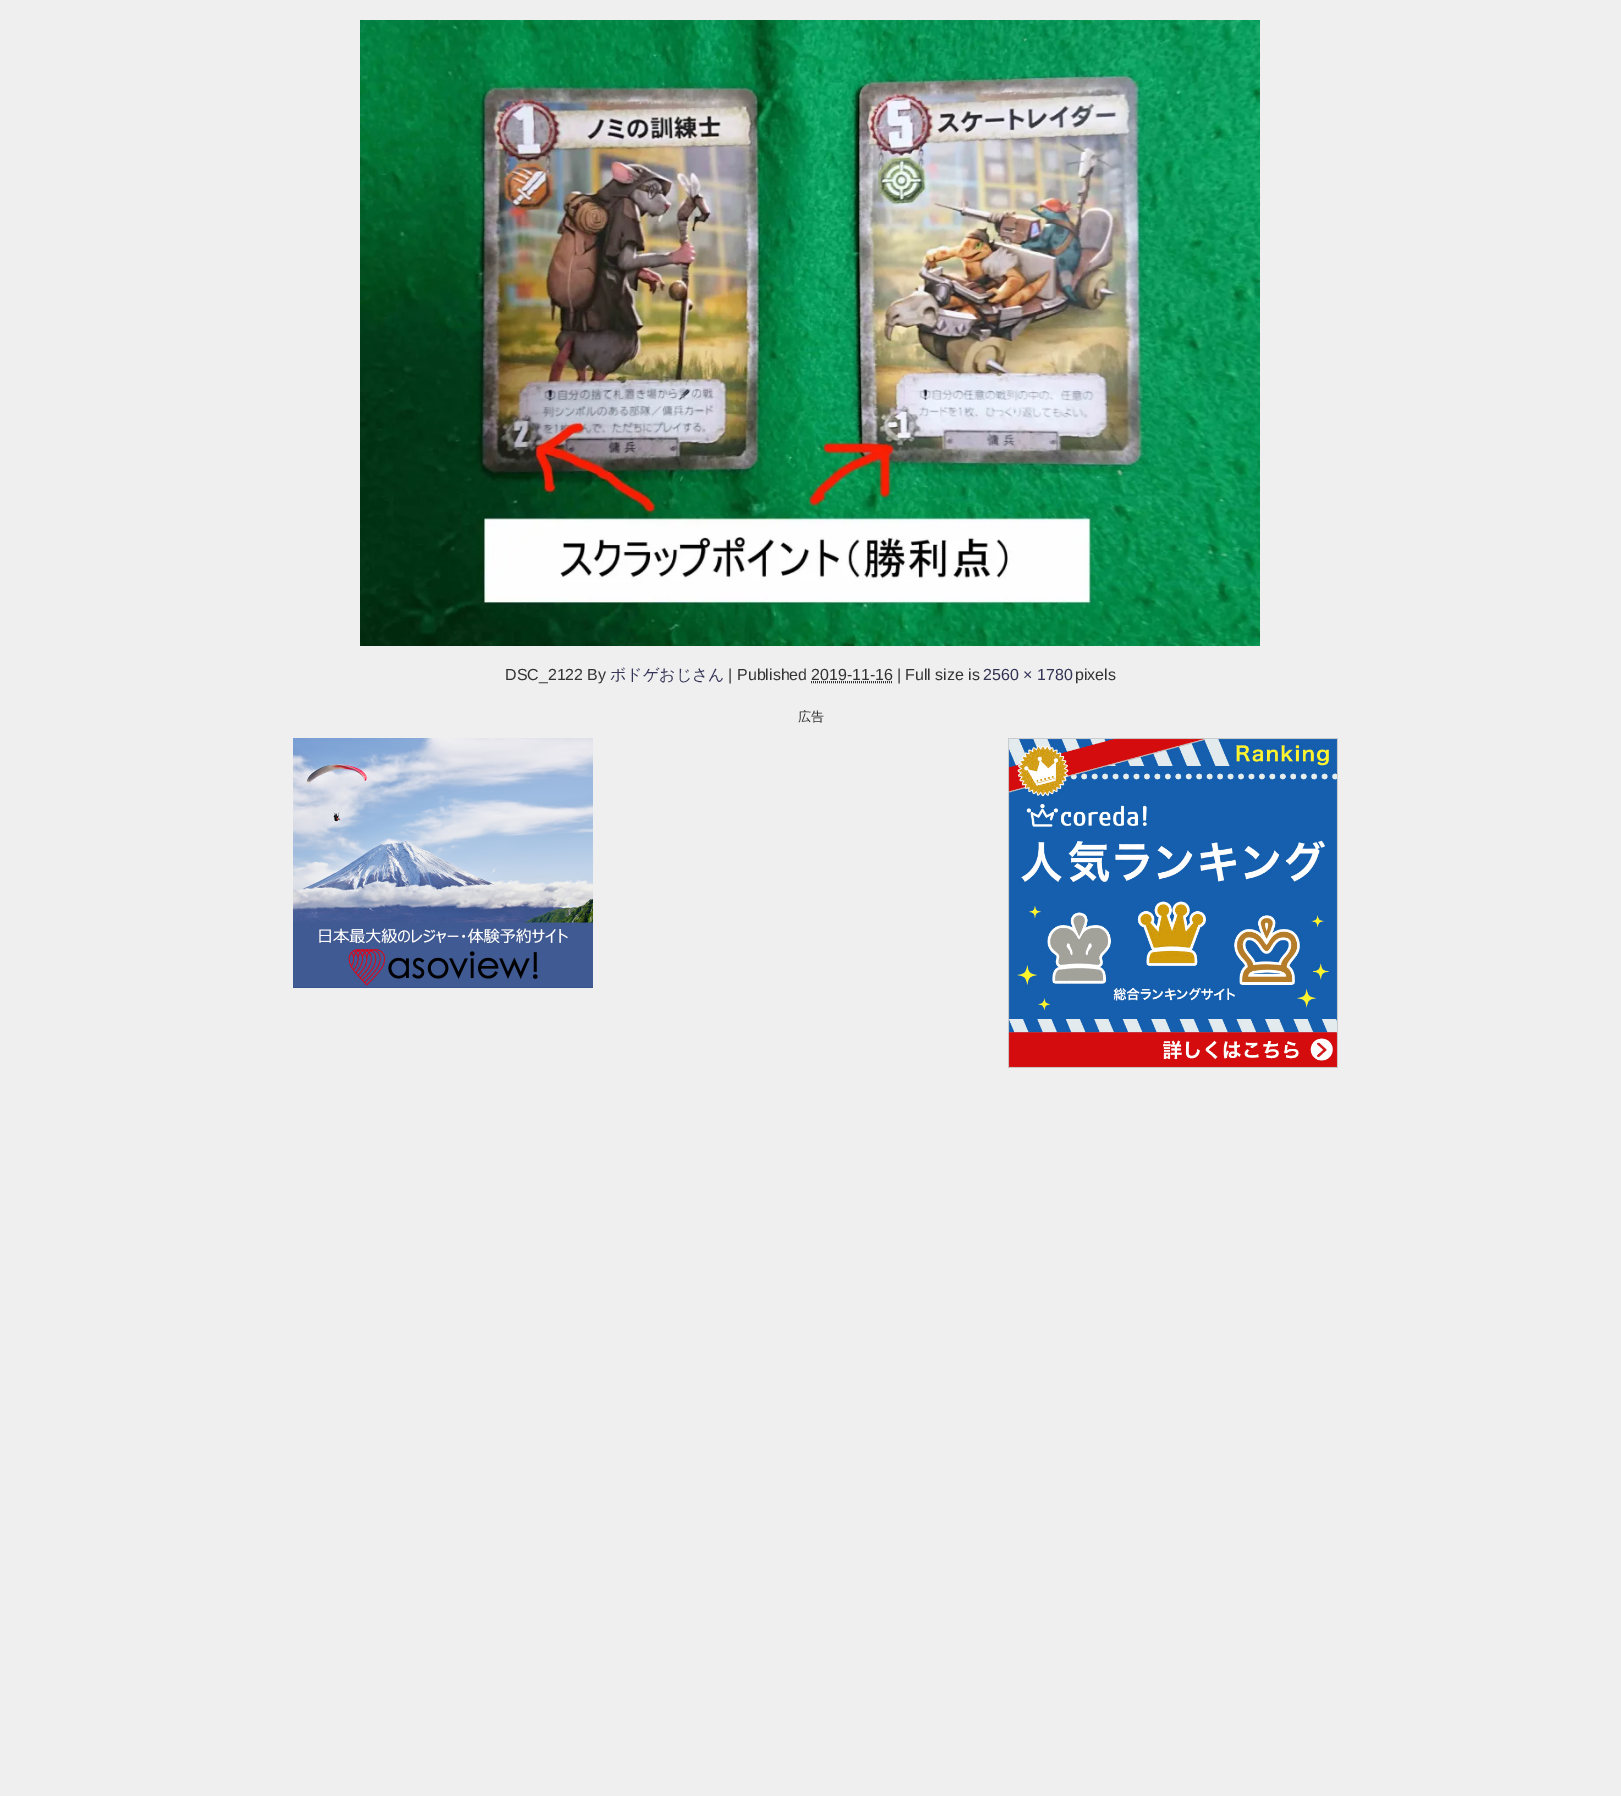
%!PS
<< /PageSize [1621 1796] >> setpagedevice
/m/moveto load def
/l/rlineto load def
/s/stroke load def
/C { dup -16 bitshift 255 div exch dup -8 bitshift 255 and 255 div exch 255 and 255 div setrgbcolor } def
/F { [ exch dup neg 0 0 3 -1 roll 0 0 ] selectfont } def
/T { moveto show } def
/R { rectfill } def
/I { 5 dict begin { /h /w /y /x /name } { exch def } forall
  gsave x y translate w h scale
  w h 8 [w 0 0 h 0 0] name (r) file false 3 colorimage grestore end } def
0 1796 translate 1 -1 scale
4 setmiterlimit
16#EFEFEF C
0 0 1621 1796 R
(1.rgb) 360 20 900 626 I
/LiberationSans-Regular 16 F
16#333333 C
(DSC_2122) 505 680 T
(By) 587 680 T
/WenQuanYiZenHei-Medium 16 F
16#333355 C
(ボドゲおじさん) 610 680 T
/LiberationSans-Regular 16 F
16#333333 C
(|) 728 680 T
(Published) 737 680 T
(2019-11-16) 811 680 T
[1 1] 0 setdash
811 682.5 m 82 0 l s
811 681.5 m 81.5 0 l s
(|) 897 680 T
(Full size is) 905 680 T
16#333355 C
(2560 × 1780) 983 680 T
16#333333 C
(pixels) 1075 680 T
/WenQuanYiZenHei-Medium 13 F
(広告) 798 721 T
(2.rgb) 293 738 300 250 I
(3.rgb) 1008 738 330 330 I
showpage
